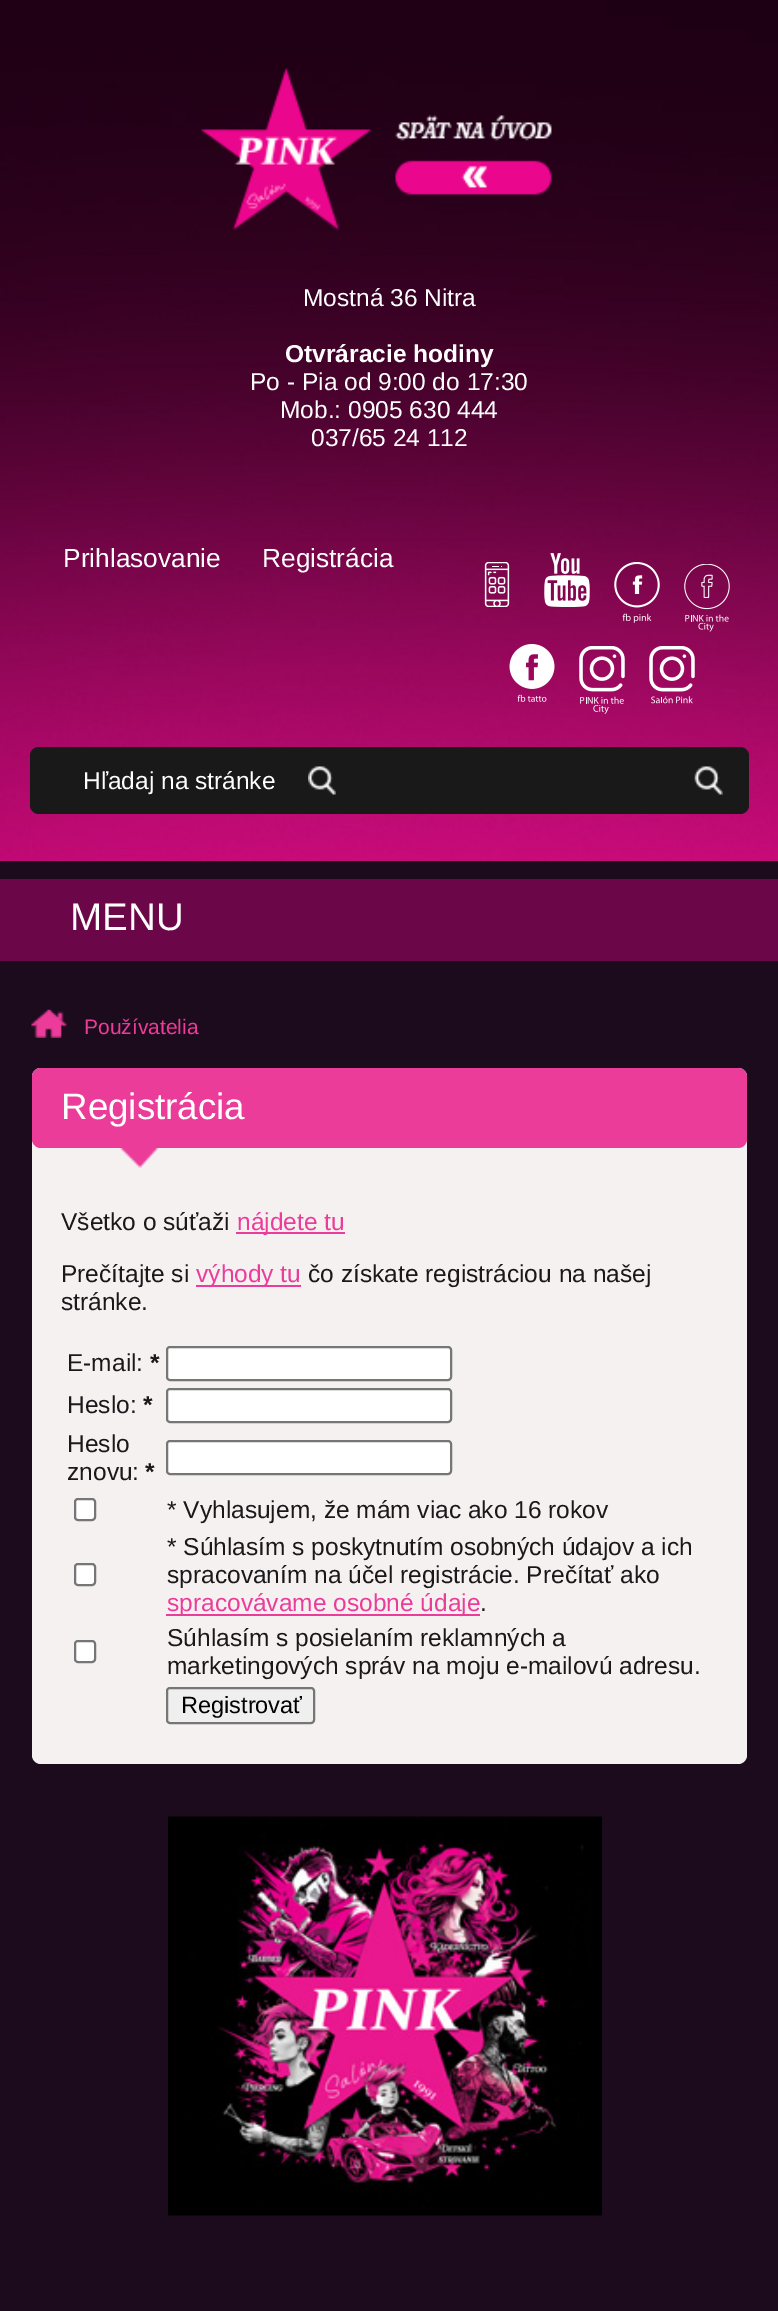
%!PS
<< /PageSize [778 2311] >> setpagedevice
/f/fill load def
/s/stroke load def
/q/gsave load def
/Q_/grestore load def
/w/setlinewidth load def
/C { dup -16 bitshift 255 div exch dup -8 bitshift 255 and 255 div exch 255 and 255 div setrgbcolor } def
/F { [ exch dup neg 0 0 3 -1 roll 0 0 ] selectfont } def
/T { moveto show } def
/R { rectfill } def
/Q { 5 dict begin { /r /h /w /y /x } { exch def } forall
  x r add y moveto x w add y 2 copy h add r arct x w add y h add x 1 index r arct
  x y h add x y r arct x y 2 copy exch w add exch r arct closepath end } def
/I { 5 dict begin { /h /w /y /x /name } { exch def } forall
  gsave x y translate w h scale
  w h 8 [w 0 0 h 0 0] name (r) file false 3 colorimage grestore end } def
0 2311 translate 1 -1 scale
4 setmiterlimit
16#FFFFFF C
0 0 778 2311 R
(1.rgb) 0 0 778 861 I
(2.rgb) 200 68 352 162 I
/LiberationSans-Regular 24.5 F
(Mostná 36 Nitra) 303 306 T
/LiberationSans-Bold 24.5 F
(Otvráracie hodiny) 285 362 T
/LiberationSans-Regular 24.5 F
(Po - Pia od 9:00 do 17:30) 250 390 T
(Mob.: 0905 630 444) 280 418 T
(037/65 24 112) 311 446 T
/LiberationSans-Regular 26.25 F
(Prihlasovanie) 63 567 T
(Registrácia) 262 567 T
(3.rgb) 484 562 26 45 I
(4.rgb) 544 553 46 54 I
(5.rgb) 614 562 46 61 I
(6.rgb) 684 564 46 68 I
(7.rgb) 509 644 46 58 I
(8.rgb) 579 646 46 68 I
(9.rgb) 649 646 46 58 I
16#191919 C
30 747 719 67 9 Q f
(10.rgb) 694 766 29 29 I
/LiberationSans-Regular 24.5 F
16#FFFFFF C
(Hľadaj na stránke) 83 789 T
(11.rgb) 308 766 28 29 I
16#1C0A1D C
0 861 778 18 R
16#6B0649 C
0 879 778 82 R
/LiberationSans-Regular 38.5 F
16#FFFFFF C
(MENU) 70 930 T
16#1C0A1D C
0 961 778 1350 R
(12.rgb) 31 1009 36 29 I
/LiberationSans-Regular 21 F
16#EC3C9A C
(Používatelia) 84 1034 T
16#F5F1F1 C
32 1068 715 696 9 Q f
16#EC3C9A C
32 1068 715 80 9 Q f
/LiberationSans-Regular 36.75 F
16#FFFFFF C
(Registrácia) 61 1119 T
(13.rgb) 120 1148 38 20 I
/LiberationSans-Regular 24.5 F
16#1B181B C
(Všetko o súťaži) 61 1230 T
16#EC3C9A C
236 1232 109 2 R
(nájdete tu) 237 1230 T
16#1B181B C
(Prečítajte si) 61 1282 T
16#EC3C9A C
196 1285 105 2 R
(výhody tu) 196 1282 T
16#1B181B C
(čo získate registráciou na našej) 308 1282 T
(stránke.) 61 1310 T
(E-mail:) 67 1371 T
/LiberationSans-Bold 24.5 F
(*) 150 1371 T
16#FFFFFF C
167 1347 284 33 3 Q q f Q_
16#767676 C
2 w
s
/LiberationSans-Regular 24.5 F
16#1B181B C
(Heslo:) 67 1413 T
/LiberationSans-Bold 24.5 F
(*) 143 1413 T
16#FFFFFF C
167 1389 284 33 3 Q q f Q_
16#767676 C
s
/LiberationSans-Regular 24.5 F
16#1B181B C
(Heslo) 67 1452 T
(znovu:) 67 1480 T
/LiberationSans-Bold 24.5 F
(*) 145 1480 T
16#FFFFFF C
167 1441 284 33 3 Q q f Q_
16#767676 C
s
16#FFFFFF C
75 1499 20 21 3 Q q f Q_
16#767676 C
s
/LiberationSans-Regular 24.5 F
16#1B181B C
(* Vyhlasujem, že mám viac ako 16 rokov) 167 1518 T
16#FFFFFF C
75 1564 20 21 3 Q q f Q_
16#767676 C
s
16#1B181B C
(* Súhlasím s poskytnutím osobných údajov a ich) 167 1555 T
(spracovaním na účel registrácie. Prečítať ako) 167 1583 T
16#EC3C9A C
166 1614 314 2 R
(spracovávame osobné údaje) 167 1611 T
16#1B181B C
(.) 480 1611 T
16#FFFFFF C
75 1641 20 21 3 Q q f Q_
16#767676 C
s
16#1B181B C
(Súhlasím s posielaním reklamných a) 167 1646 T
(marketingových správ na moju e-mailovú adresu.) 167 1674 T
16#EFEFEF C
167 1688 147 35 3 Q q f Q_
16#767676 C
s
/LiberationSans-Regular 23.5 F
16#000000 C
(Registrovať) 181 1713 T
(14.rgb) 168 1816 434 400 I
showpage
